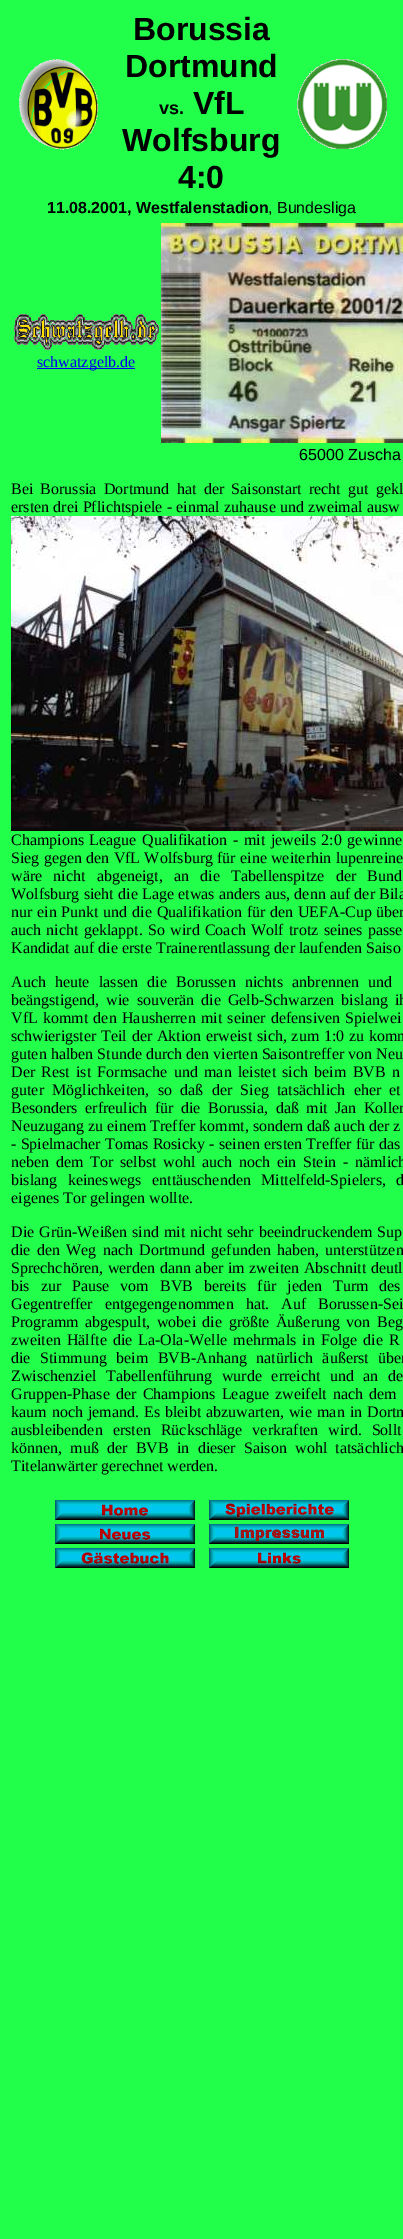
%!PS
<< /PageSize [403 2239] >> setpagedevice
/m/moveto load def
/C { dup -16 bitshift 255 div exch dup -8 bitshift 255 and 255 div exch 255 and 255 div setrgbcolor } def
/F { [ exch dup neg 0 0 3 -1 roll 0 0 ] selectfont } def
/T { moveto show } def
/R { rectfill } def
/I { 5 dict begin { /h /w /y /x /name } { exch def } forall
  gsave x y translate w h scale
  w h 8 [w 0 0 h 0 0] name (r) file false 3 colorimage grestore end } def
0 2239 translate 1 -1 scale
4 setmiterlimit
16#21FF4A C
0 0 403 2239 R
(1.rgb) 19 59 80 91 I
/LiberationSans-Bold 32 F
16#000000 C
(Borussia) 133 40 T
(Dortmund) 125 77 T
/LiberationSans-Bold 18 F
(vs.) 159 114 T
/LiberationSans-Bold 32 F
(VfL) 193 114 T
(Wolfsburg) 122 151 T
(4:0) 178 188 T
(2.rgb) 297 59 90 90 I
/LiberationSans-Bold 16 F
(11.08.2001, Westfalenstadion) 47 213 T
/LiberationSans-Regular 16 F
(, Bundesliga) 268 213 T
(3.rgb) 14 314 145 36 I
16#0000EE C
37 368 98 1 R
/LiberationSerif-Regular 16 F
(schwatzgelb.de) 37 367 T
(4.rgb) 161 223 242 220 I
/LiberationSans-Regular 16 F
16#000000 C
(65000 Zuscha) 299 460 T
/LiberationSerif-Regular 16 F
11 494 m 3.25 0 32 (Bei Borussia Dortmund hat der Saisonstart recht gut gekl) widthshow
11 512 m .25 0 32 (ersten drei Pflichtspiele - einmal zuhause und zweimal ausw) widthshow
(5.rgb) 11 516 392 315 I
11 845 m 1.5 0 32 (Champions League Qualifikation) widthshow
233 845 m 1.5 0 32 (- mit jeweils 2:0 gewinne) widthshow
11 863 m .25 0 32 (Sieg gegen den VfL Wolfsburg für eine weiterhin lupenreine) widthshow
11 881 m 7.25 0 32 (wäre nicht abgeneigt, an die Tabellenspitze der Bund) widthshow
11 899 m .25 0 32 (Wolfsburg sieht die Lage etwas anders aus, denn auf der Bila) widthshow
11 917 m .75 0 32 (nur ein Punkt und die Qualifikation für den UEFA-Cup über) widthshow
11 935 m 1.25 0 32 (auch nicht geklappt. So wird Coach Wolf trotz seines passe) widthshow
(Kandidat auf die erste Trainerentlassung der laufenden Saiso) 11 953 T
11 987 m 5.25 0 32 (Auch heute lassen die Borussen nichts anbrennen und) widthshow
11 1005 m 3 0 32 (beängstigend, wie souverän die Gelb-Schwarzen bislang ih) widthshow
11 1023 m 1.25 0 32 (VfL kommt den Hausherren mit seiner defensiven Spielwei) widthshow
11 1041 m .75 0 32 (schwierigster Teil der Aktion erweist sich, zum 1:0 zu komm) widthshow
(guten halben Stunde durch den vierten Saisontreffer von Neu) 11 1059 T
11 1077 m 2.25 0 32 (Der Rest ist Formsache und man leistet sich beim BVB n) widthshow
11 1095 m 4.25 0 32 (guter Möglichkeiten, so daß der Sieg tatsächlich eher et) widthshow
11 1113 m 3.5 0 32 (Besonders erfreulich für die Borussia, daß mit Jan Koller) widthshow
(Neuzugang zu einem Treffer kommt, sondern daß auch der z) 11 1131 T
11 1149 m .25 0 32 (- Spielmacher Tomas Rosicky - seinen ersten Treffer für das) widthshow
11 1167 m 2.75 0 32 (neben dem Tor selbst wohl auch noch ein Stein - nämlich) widthshow
11 1185 m 6.5 0 32 (bislang keineswegs enttäuschenden Mittelfeld-Spielers, d) widthshow
(eigenes Tor gelingen wollte.) 11 1203 T
11 1237 m 1 0 32 (Die Grün-Weißen sind mit nicht sehr beeindruckendem Sup) widthshow
11 1255 m 2.25 0 32 (die den Weg nach Dortmund gefunden haben, unterstützen) widthshow
11 1273 m .75 0 32 (Sprechchören, werden dann aber im zweiten Abschnitt deutl) widthshow
11 1291 m 7 0 32 (bis zur Pause vom BVB bereits für jeden Turm des) widthshow
11 1309 m 8 0 32 (Gegentreffer entgegengenommen hat. Auf Borussen-Sei) widthshow
11 1327 m 2.5 0 32 (Programm abgespult, wobei die größte Äußerung von Beg) widthshow
11 1345 m 2 0 32 (zweiten Hälfte die La-Ola-Welle mehrmals in Folge die R) widthshow
11 1363 m 5.5 0 32 (die Stimmung beim BVB-Anhang natürlich äußerst über) widthshow
11 1381 m 5.5 0 32 (Zwischenziel Tabellenführung wurde erreicht und an de) widthshow
11 1399 m 2.25 0 32 (Gruppen-Phase der Champions League zweifelt nach dem) widthshow
11 1417 m 1 0 32 (kaum noch jemand. Es bleibt abzuwarten, wie man in Dortm) widthshow
11 1435 m 6 0 32 (ausbleibenden ersten Rückschläge verkraften wird. Sollt) widthshow
11 1453 m 4.25 0 32 (können, muß der BVB in dieser Saison wohl tatsächlich) widthshow
(Titelanwärter gerechnet werden.) 11 1471 T
(6.rgb) 55 1500 140 20 I
(7.rgb) 209 1500 140 20 I
(8.rgb) 55 1524 140 20 I
(9.rgb) 209 1524 140 20 I
(10.rgb) 55 1548 140 20 I
(11.rgb) 209 1548 140 20 I
showpage
